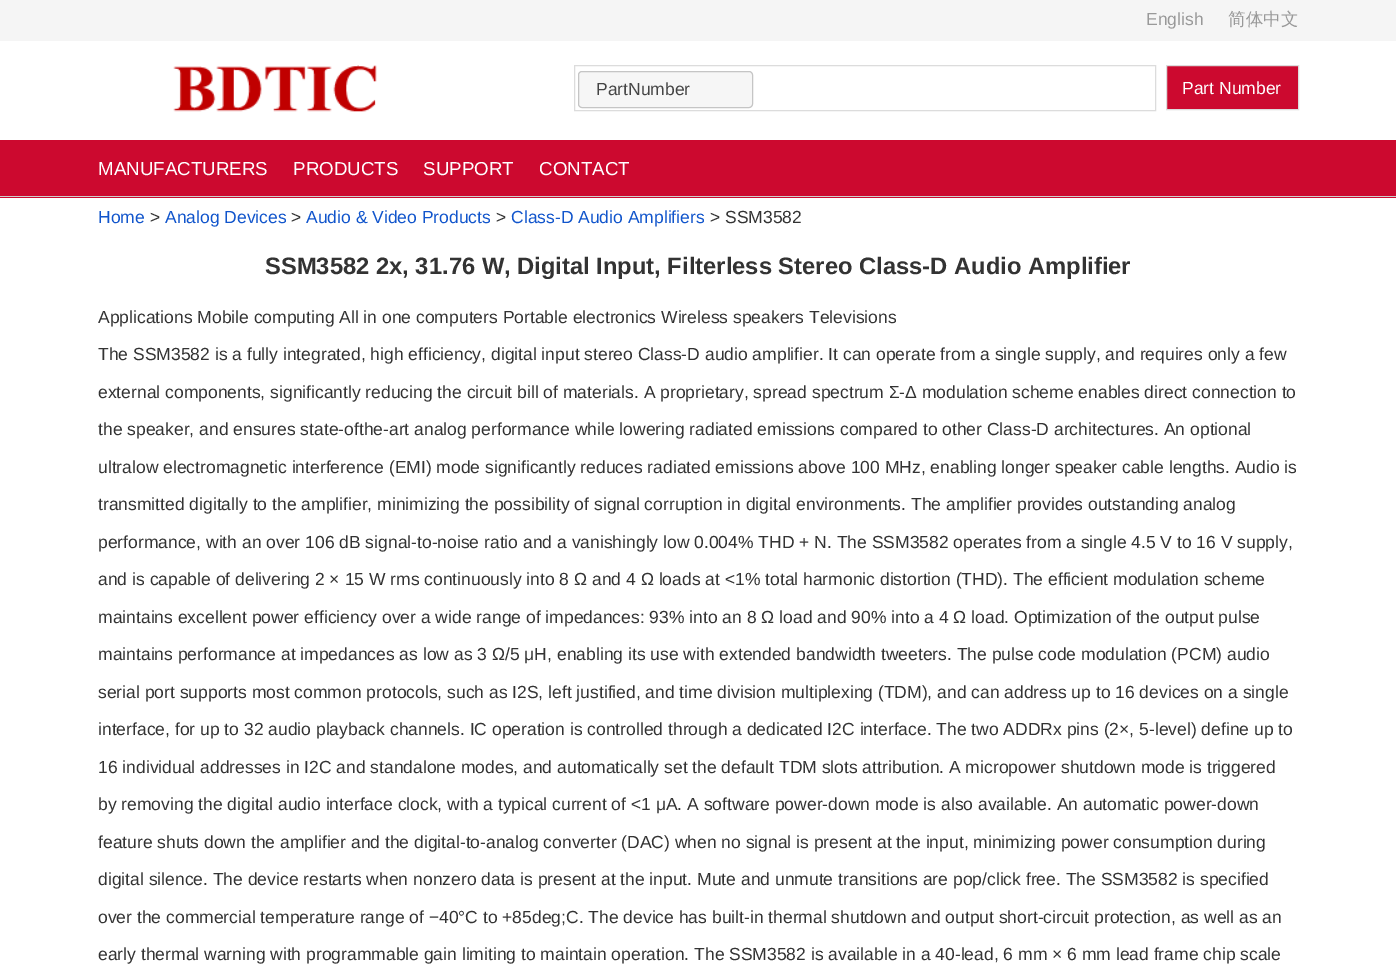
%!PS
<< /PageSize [1396 966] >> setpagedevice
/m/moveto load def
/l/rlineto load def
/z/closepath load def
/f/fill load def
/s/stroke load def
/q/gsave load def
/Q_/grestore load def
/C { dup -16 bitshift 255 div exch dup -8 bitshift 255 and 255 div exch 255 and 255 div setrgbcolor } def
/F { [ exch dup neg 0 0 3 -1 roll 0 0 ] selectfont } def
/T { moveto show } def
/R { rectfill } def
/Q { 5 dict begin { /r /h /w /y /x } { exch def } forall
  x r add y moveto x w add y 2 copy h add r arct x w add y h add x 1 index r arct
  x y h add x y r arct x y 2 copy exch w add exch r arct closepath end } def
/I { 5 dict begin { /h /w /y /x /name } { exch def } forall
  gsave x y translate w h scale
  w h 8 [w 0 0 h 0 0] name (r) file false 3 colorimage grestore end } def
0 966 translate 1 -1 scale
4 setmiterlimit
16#FFFFFF C
0 0 1396 966 R
16#F5F5F5 C
0 0 1396 41 R
/LiberationSans-Regular 17.5 F
16#999999 C
(English) 1146 25 T
/WenQuanYiZenHei-Medium 17.5 F
(简体中文) 1228 25 T
(1.rgb) 173 65 204 47 I
16#DCDCDC C
574.5 65.5 581 45 rectstroke
16#F6F6F6 C
578.5 71.5 174 36 3.5 Q q f Q_
16#C5C5C5 C
s
/LiberationSans-Regular 17.5 F
16#454545 C
(PartNumber) 596 95 T
16#CC092F C
1166.5 65.5 m 132 0 l 0 44 l -132 0 l z q f Q_
16#DCDCDC C
s
16#FFFFFF C
(Part Number) 1182 94 T
16#CC092F C
0 140 1396 58 R
16#CECECE C
0 196 1396 1 R
/LiberationSans-Regular 18.75 F
16#FFFFFF C
(MANUFACTURERS) 98 175 T
(PRODUCTS) 293 175 T
(SUPPORT) 423 175 T
(CONTACT) 539 175 T
/LiberationSans-Regular 17.5 F
16#1155CC C
(Home) 98 223 T
16#333333 C
(>) 150 223 T
16#1155CC C
(Analog Devices) 165 223 T
16#333333 C
(>) 291 223 T
16#1155CC C
(Audio & Video Products) 306 223 T
16#333333 C
(>) 496 223 T
16#1155CC C
(Class-D Audio Amplifiers) 511 223 T
16#333333 C
(> SSM3582) 710 223 T
/LiberationSans-Bold 23.75 F
(SSM3582 2x, 31.76 W, Digital Input, Filterless Stereo Class-D Audio Amplifier) 265 274 T
/LiberationSans-Regular 17.5 F
(Applications Mobile computing All in one computers Portable electronics Wireless speakers Televisions) 98 323 T
(The SSM3582 is a fully integrated, high efficiency, digital input stereo Class-D audio amplifier. It can operate from a single supply, and requires only a few) 98 360 T
(external components, significantly reducing the circuit bill of materials. A proprietary, spread spectrum Σ-Δ modulation scheme enables direct connection to) 98 398 T
(the speaker, and ensures state-ofthe-art analog performance while lowering radiated emissions compared to other Class-D architectures. An optional) 98 435 T
(ultralow electromagnetic interference \(EMI\) mode significantly reduces radiated emissions above 100 MHz, enabling longer speaker cable lengths. Audio is) 98 473 T
(transmitted digitally to the amplifier, minimizing the possibility of signal corruption in digital environments. The amplifier provides outstanding analog) 98 510 T
(performance, with an over 106 dB signal-to-noise ratio and a vanishingly low 0.004% THD + N. The SSM3582 operates from a single 4.5 V to 16 V supply,) 98 548 T
(and is capable of delivering 2 × 15 W rms continuously into 8 Ω and 4 Ω loads at <1% total harmonic distortion \(THD\). The efficient modulation scheme) 98 585 T
(maintains excellent power efficiency over a wide range of impedances: 93% into an 8 Ω load and 90% into a 4 Ω load. Optimization of the output pulse) 98 623 T
(maintains performance at impedances as low as 3 Ω/5 μH, enabling its use with extended bandwidth tweeters. The pulse code modulation \(PCM\) audio) 98 660 T
(serial port supports most common protocols, such as I2S, left justified, and time division multiplexing \(TDM\), and can address up to 16 devices on a single) 98 698 T
(interface, for up to 32 audio playback channels. IC operation is controlled through a dedicated I2C interface. The two ADDRx pins \(2×, 5-level\) define up to) 98 735 T
(16 individual addresses in I2C and standalone modes, and automatically set the default TDM slots attribution. A micropower shutdown mode is triggered) 98 773 T
(by removing the digital audio interface clock, with a typical current of <1 μA. A software power-down mode is also available. An automatic power-down) 98 810 T
(feature shuts down the amplifier and the digital-to-analog converter \(DAC\) when no signal is present at the input, minimizing power consumption during) 98 848 T
(digital silence. The device restarts when nonzero data is present at the input. Mute and unmute transitions are pop/click free. The SSM3582 is specified) 98 885 T
(over the commercial temperature range of −40°C to +85deg;C. The device has built-in thermal shutdown and output short-circuit protection, as well as an) 98 923 T
(early thermal warning with programmable gain limiting to maintain operation. The SSM3582 is available in a 40-lead, 6 mm × 6 mm lead frame chip scale) 98 960 T
showpage
